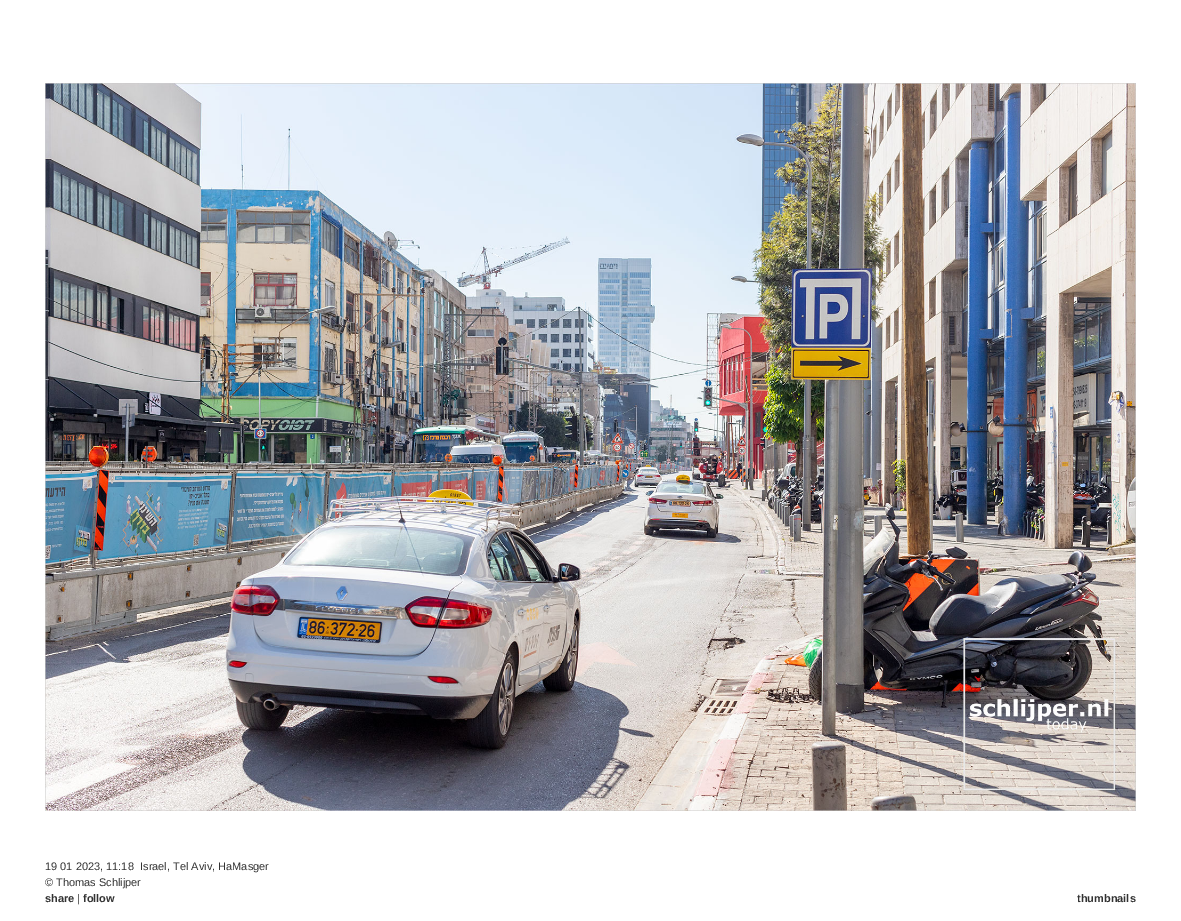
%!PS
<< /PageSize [1181 921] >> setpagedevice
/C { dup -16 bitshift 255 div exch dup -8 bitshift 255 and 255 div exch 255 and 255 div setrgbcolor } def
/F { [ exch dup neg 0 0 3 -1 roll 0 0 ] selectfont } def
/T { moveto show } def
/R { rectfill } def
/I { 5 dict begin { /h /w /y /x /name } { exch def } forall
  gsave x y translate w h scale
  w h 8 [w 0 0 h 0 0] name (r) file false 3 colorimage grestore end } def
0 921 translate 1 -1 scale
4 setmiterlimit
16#FFFFFF C
0 0 1181 921 R
(1.rgb) 45 83 1091 728 I
/LiberationSans-Regular 11 F
16#333333 C
(19 01 2023, 11:18) 45 870 T
(Israel, Tel Aviv, HaMasger) 140 870 T
(© Thomas Schlijper) 45 886 T
/LiberationSans-Bold 11 F
(share) 45 902 T
/LiberationSans-Regular 11 F
(|) 77 902 T
/LiberationSans-Bold 11 F
(follow) 83 902 T
(thumbnails) 1077 902 T
showpage
